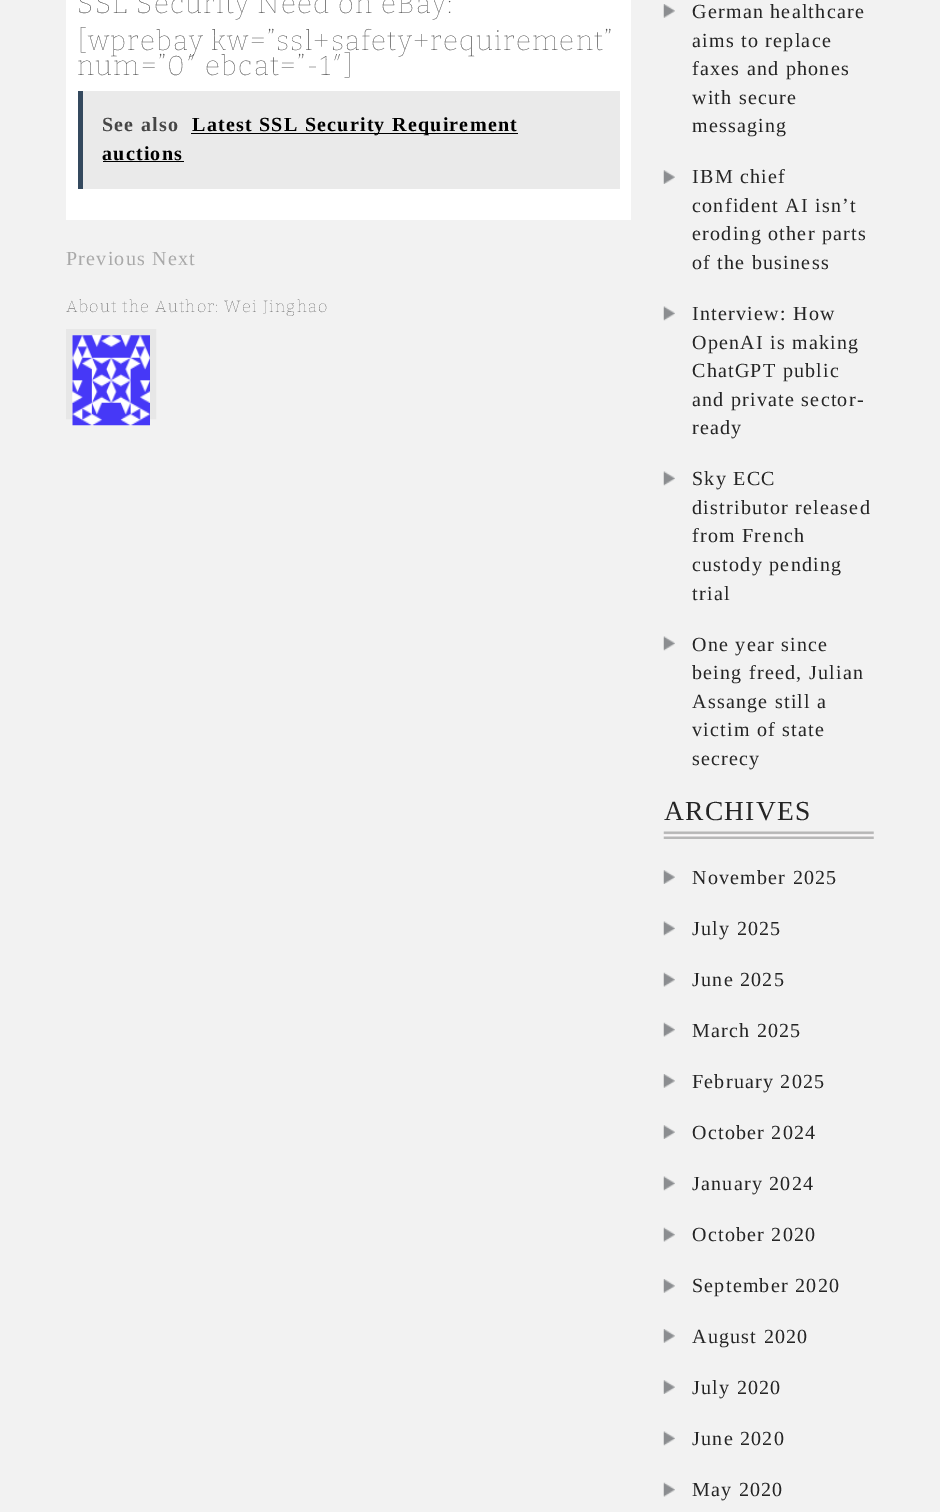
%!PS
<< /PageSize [940 1512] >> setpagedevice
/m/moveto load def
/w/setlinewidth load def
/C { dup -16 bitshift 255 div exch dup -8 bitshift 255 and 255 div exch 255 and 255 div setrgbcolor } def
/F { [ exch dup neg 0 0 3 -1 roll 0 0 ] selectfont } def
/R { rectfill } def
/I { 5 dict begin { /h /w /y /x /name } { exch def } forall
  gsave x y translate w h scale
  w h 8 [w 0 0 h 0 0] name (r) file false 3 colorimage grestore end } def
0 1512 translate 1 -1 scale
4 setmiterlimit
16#F2F2F2 C
0 0 940 1512 R
16#FFFFFF C
66 0 565 220 R
/Bitter-Thin 27.5 F
16#555555 C
77 13 m 1.25 0 (SSL Security Need on eBay:) ashow
77 50 m 1.25 0 ([wprebay kw=”ssl+safety+requirement”) ashow
77 75 m 1.25 0 (num=”0″ ebcat=”-1″]) ashow
16#EAEAEA C
83 91 537 98 R
16#34495E C
78 91 5 98 R
/LiberationSerif-Bold 20 F
16#464646 C
102 131 m 1.25 0 (See also) ashow
16#000000 C
191 133 327 1 R
192 131 m 1.25 0 (Latest SSL Security Requirement) ashow
102 160 m 1.25 0 (auctions) ashow
103 161 81 1 R
/LiberationSerif-Regular 20 F
16#A9A9A9 C
66 265 m 1.25 0 (Previous Next) ashow
/Bitter-Thin 16.25 F
16#555555 C
66 312 m 1.25 0 (About the Author: Wei Jinghao) ashow
16#E7E7E7 C
6 w
69 332 84 84 rectstroke
(1.rgb) 72 335 78 91 I
(2.rgb) 663 4 12 14 I
/LiberationSerif-Regular 20 F
16#252525 C
692 18 m 1.25 0 (German healthcare) ashow
692 47 m 1.25 0 (aims to replace) ashow
692 75 m 1.25 0 (faxes and phones) ashow
692 104 m 1.25 0 (with secure) ashow
692 132 m 1.25 0 (messaging) ashow
(3.rgb) 663 170 12 14 I
692 183 m 1.25 0 (IBM chief) ashow
692 212 m 1.25 0 (confident AI isn’t) ashow
692 240 m 1.25 0 (eroding other parts) ashow
692 269 m 1.25 0 (of the business) ashow
(4.rgb) 663 306 12 15 I
692 320 m 1.25 0 (Interview: How) ashow
692 349 m 1.25 0 (OpenAI is making) ashow
692 377 m 1.25 0 (ChatGPT public) ashow
692 406 m 1.25 0 (and private sector-) ashow
692 434 m 1.25 0 (ready) ashow
(4.rgb) 663 471 12 15 I
692 485 m 1.25 0 (Sky ECC) ashow
692 514 m 1.25 0 (distributor released) ashow
692 542 m 1.25 0 (from French) ashow
692 571 m 1.25 0 (custody pending) ashow
692 600 m 1.25 0 (trial) ashow
(4.rgb) 663 636 12 15 I
692 651 m 1.25 0 (One year since) ashow
692 679 m 1.25 0 (being freed, Julian) ashow
692 708 m 1.25 0 (Assange still a) ashow
692 736 m 1.25 0 (victim of state) ashow
692 765 m 1.25 0 (secrecy) ashow
(5.rgb) 663 831 211 8 I
/LiberationSerif-Regular 27.5 F
664 820 m 1.25 0 (ARCHIVES) ashow
(3.rgb) 663 870 12 14 I
/LiberationSerif-Regular 20 F
692 884 m 1.25 0 (November 2025) ashow
(4.rgb) 663 921 12 15 I
692 935 m 1.25 0 (July 2025) ashow
(6.rgb) 663 972 12 15 I
692 986 m 1.25 0 (June 2025) ashow
(6.rgb) 663 1022 12 15 I
692 1037 m 1.25 0 (March 2025) ashow
(2.rgb) 663 1074 12 14 I
692 1088 m 1.25 0 (February 2025) ashow
(3.rgb) 663 1125 12 14 I
692 1139 m 1.25 0 (October 2024) ashow
(4.rgb) 663 1176 12 15 I
692 1190 m 1.25 0 (January 2024) ashow
(6.rgb) 663 1227 12 15 I
692 1241 m 1.25 0 (October 2020) ashow
(2.rgb) 663 1279 12 14 I
692 1292 m 1.25 0 (September 2020) ashow
(2.rgb) 663 1329 12 14 I
692 1343 m 1.25 0 (August 2020) ashow
(3.rgb) 663 1380 12 14 I
692 1394 m 1.25 0 (July 2020) ashow
(4.rgb) 663 1431 12 15 I
692 1445 m 1.25 0 (June 2020) ashow
(6.rgb) 663 1482 12 15 I
692 1496 m 1.25 0 (May 2020) ashow
showpage
